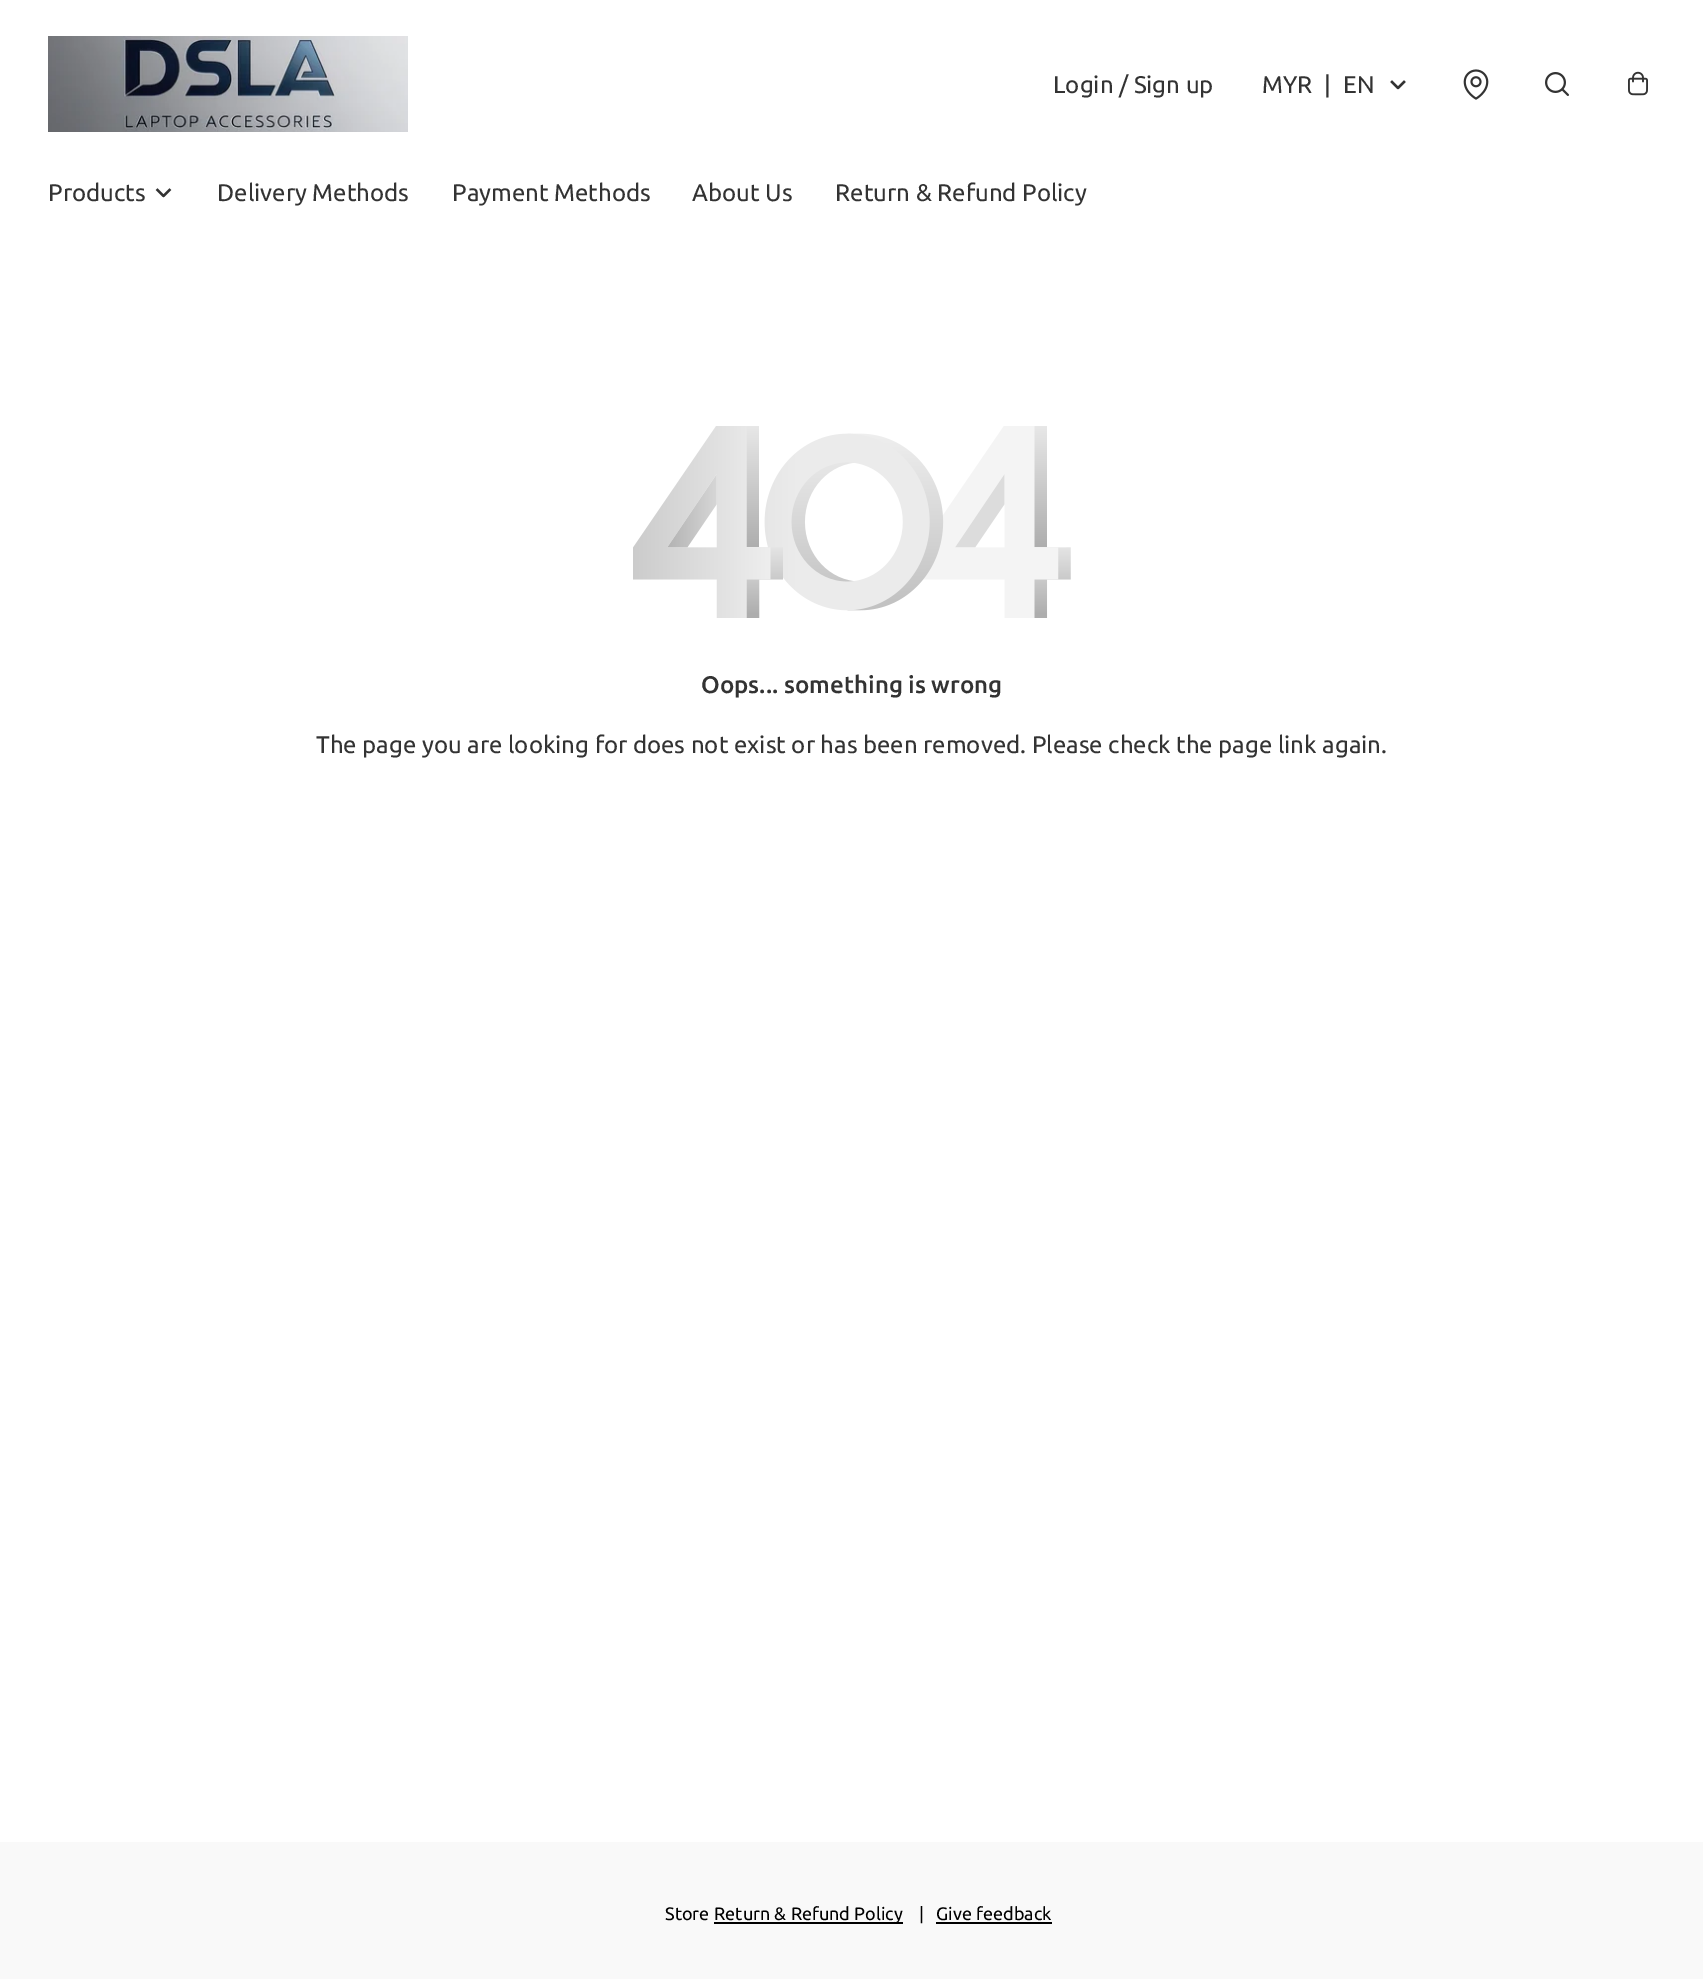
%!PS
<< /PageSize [1703 1979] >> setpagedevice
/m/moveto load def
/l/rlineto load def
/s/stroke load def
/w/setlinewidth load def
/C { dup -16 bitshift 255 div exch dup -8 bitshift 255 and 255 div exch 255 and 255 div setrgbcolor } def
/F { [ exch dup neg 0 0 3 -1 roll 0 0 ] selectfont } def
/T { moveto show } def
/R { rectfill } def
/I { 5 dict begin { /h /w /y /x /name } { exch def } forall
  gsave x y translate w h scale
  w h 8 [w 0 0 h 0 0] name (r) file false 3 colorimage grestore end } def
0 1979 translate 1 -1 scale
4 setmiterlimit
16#FFFFFF C
0 0 1703 1979 R
(1.rgb) 48 36 360 96 I
/Ubuntu-Regular 24 F
16#333333 C
(Login / Sign up) 1053 93 T
(MYR) 1262 93 T
(|) 1324 93 T
(EN) 1343 93 T
2.2 w
2 setlinecap
1 setlinejoin
1392 82 m 6 6 l 6 -6 l s
(2.rgb) 1463 69 26 31 I
(3.rgb) 1545 72 24 24 I
(4.rgb) 1628 71 20 25 I
(Products) 48 201 T
157.5 190 m 6 6 l 6 -6 l s
(Delivery Methods) 217 201 T
(Payment Methods) 452 201 T
(About Us) 692 201 T
(Return & Refund Policy) 835 201 T
(5.rgb) 633 426 438 192 I
/Ubuntu-Medium 24 F
(Oops... something is wrong) 701 693 T
/Ubuntu-Regular 24 F
(The page you are looking for does not exist or has been removed. Please check the page link again.) 316 753 T
16#F9F9F9 C
0 1842 1703 137 R
/Ubuntu-Regular 18 F
16#000000 C
(Store) 665 1920 T
714 1922 189 2 R
(Return & Refund Policy) 714 1920 T
(|) 919 1920 T
(Give feedback) 936 1920 T
936 1922 116 2 R
showpage
